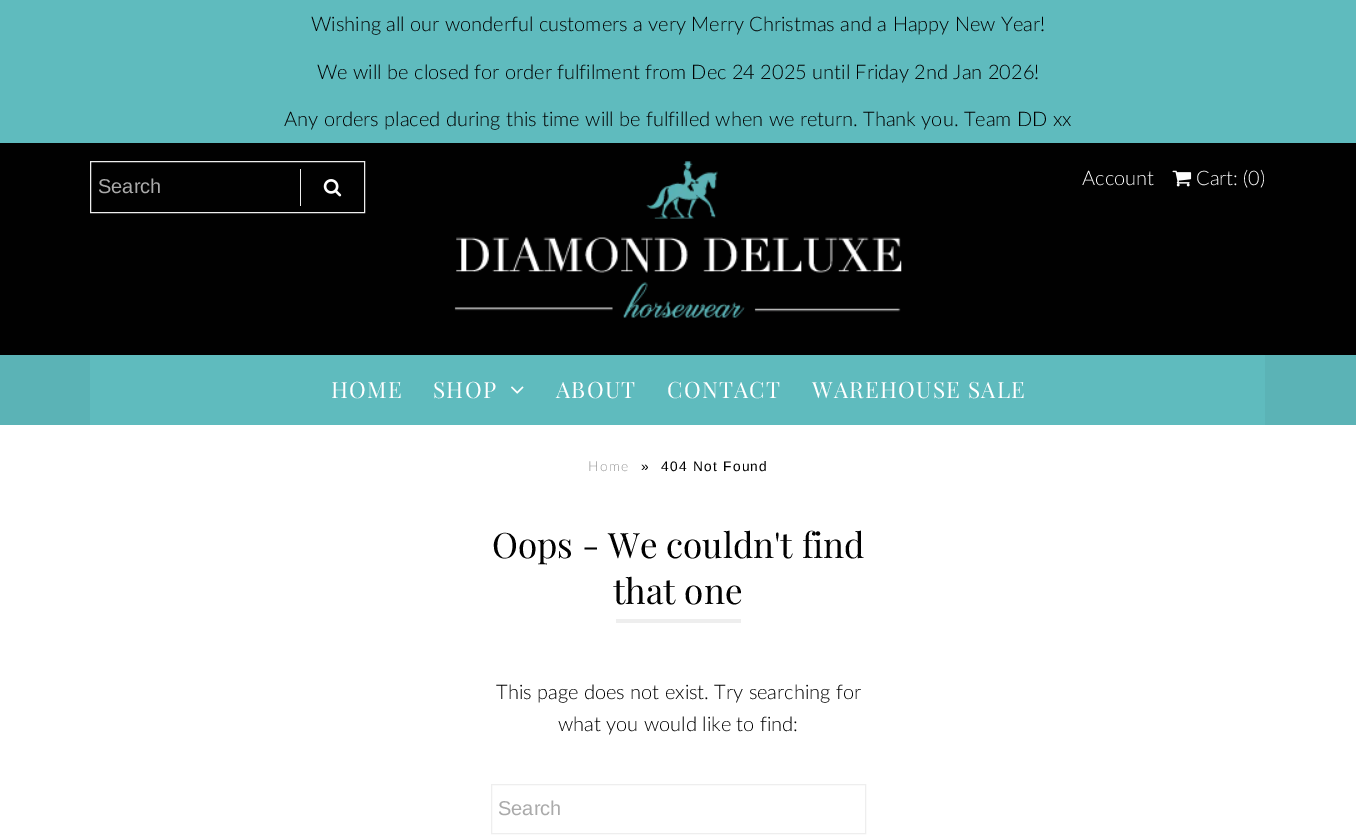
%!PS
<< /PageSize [1356 838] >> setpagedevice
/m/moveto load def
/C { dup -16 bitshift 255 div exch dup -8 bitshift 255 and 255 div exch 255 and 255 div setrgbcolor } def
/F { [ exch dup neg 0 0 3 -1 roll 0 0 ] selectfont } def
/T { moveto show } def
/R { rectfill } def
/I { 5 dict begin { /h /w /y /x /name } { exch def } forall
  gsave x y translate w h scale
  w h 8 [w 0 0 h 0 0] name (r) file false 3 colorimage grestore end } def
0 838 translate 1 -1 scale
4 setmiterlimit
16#FFFFFF C
0 0 1356 838 R
16#5FBBBE C
0 0 1356 143 R
/Lato-Light 20 F
16#010101 C
(Wishing all our wonderful customers a very Merry Christmas and a Happy New Year!) 311 31 T
(We will be closed for order fulfilment from Dec 24 2025 until Friday 2nd Jan 2026!) 317 79 T
(Any orders placed during this time will be fulfilled when we return. Thank you. Team DD xx) 284 126 T
0 143 1356 212 R
16#EEEEEE C
90.5 161.5 274 51 rectstroke
/LiberationSans-Regular 20 F
16#AAAAAA C
(Search) 98 193 T
16#EEEEEE C
300 169 1 37 R
(1.rgb) 323 179 19 18 I
(2.rgb) 454 161 448 157 I
/Lato-Light 20 F
16#FFFFFF C
(Account) 1082 185 T
(3.rgb) 1172 170 20 17 I
(Cart: \(0\)) 1196 185 T
16#5BB3B6 C
0 355 1356 70 R
16#5FBBBE C
90 355 1175 70 R
/PlayfairDisplay-Regular 22.5 F
16#FFFFFF C
331 398 m 1.25 0 (HOME) ashow
433 398 m 1.25 0 (SHOP) ashow
(4.rgb) 511 386 13 8 I
556 398 m 1.25 0 (ABOUT) ashow
667 398 m 1.25 0 (CONTACT) ashow
812 398 m 1.25 0 (WAREHOUSE SALE) ashow
/Lato-Light 13.75 F
16#999999 C
588 471 m 1.25 0 (Home) ashow
/LiberationSans-Regular 13.75 F
16#010101 C
641 471 m 1.25 0 (») ashow
661 471 m 1.25 0 (404 Not Found) ashow
/PlayfairDisplay-Regular 35 F
(Oops - We couldn't find) 492 558 T
(that one) 613 604 T
16#EEEEEE C
616 619 125 4 R
/Lato-Light 20 F
16#010101 C
(This page does not exist. Try searching for) 496 699 T
(what you would like to find:) 558 731 T
16#EEEEEE C
491.5 784.5 374 49 rectstroke
/LiberationSans-Regular 20 F
16#AAAAAA C
(Search) 498 815 T
showpage
